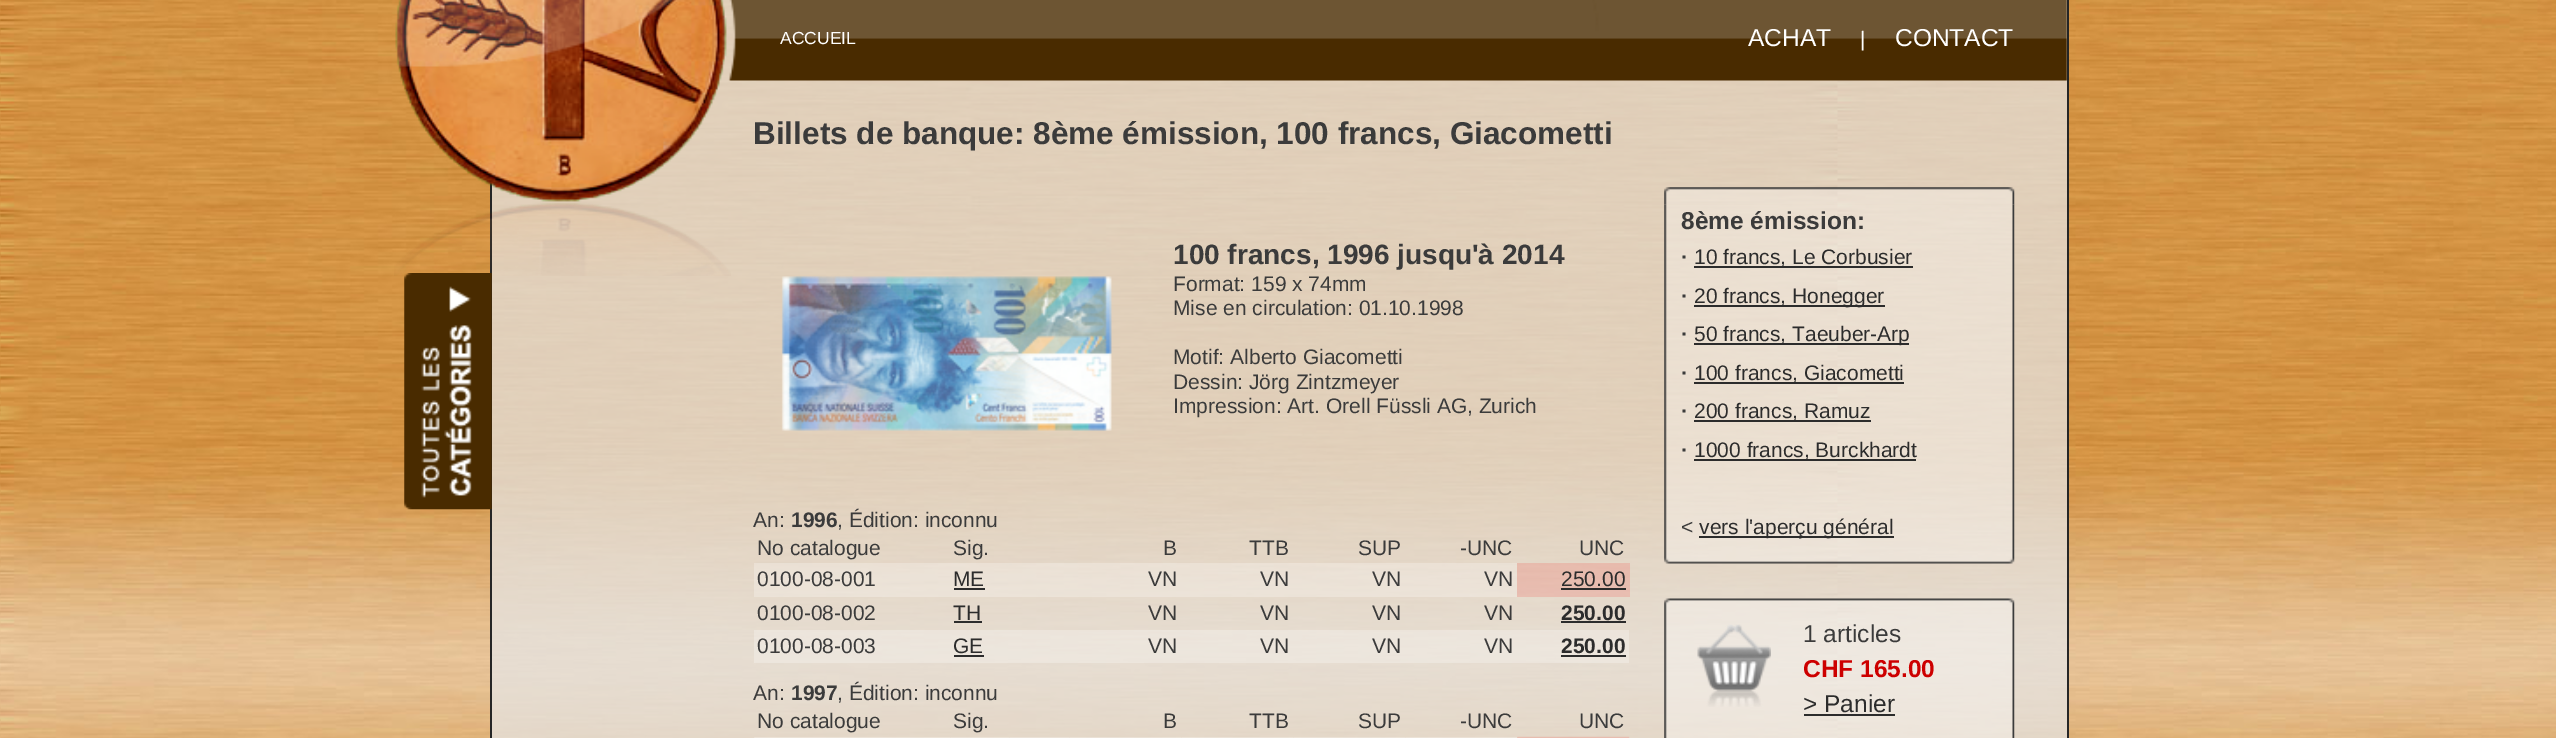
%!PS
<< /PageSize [2556 738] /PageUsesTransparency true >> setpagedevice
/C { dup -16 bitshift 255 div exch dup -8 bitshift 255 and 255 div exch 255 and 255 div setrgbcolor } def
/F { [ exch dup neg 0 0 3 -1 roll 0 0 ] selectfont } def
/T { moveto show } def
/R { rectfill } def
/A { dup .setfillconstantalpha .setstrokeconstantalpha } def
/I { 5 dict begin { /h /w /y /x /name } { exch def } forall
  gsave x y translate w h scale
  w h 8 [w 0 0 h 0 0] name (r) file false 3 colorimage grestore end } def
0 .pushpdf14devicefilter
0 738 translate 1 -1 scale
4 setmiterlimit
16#FFFFFF C
0 0 2556 738 R
(1.rgb) 0 0 2556 738 I
0.73 A
16#E6E6E6 C
492 0 1575 738 R
1 A
16#262626 C
2067 0 2 738 R
490 181 2 557 R
(3.rgb) 728 0 1339 81 I
(2.rgb) 394 0 337 276 I
/LiberationSans-Regular 17.5 F
16#FFFFFF C
(ACCUEIL) 780 44 T
/LiberationSans-Regular 24.5 F
(ACHAT) 1748 46 T
/LiberationSans-Regular 21 F
(|) 1860 46 T
/LiberationSans-Regular 24.5 F
(CONTACT) 1895 46 T
/LiberationSans-Bold 31.5 F
16#3B3B3B C
(Billets de banque: 8ème émission, 100 francs, Giacometti) 753 144 T
(4.rgb) 404 273 88 237 I
(5.rgb) 781 276 331 155 I
/LiberationSans-Bold 28 F
(100 francs, 1996 jusqu'à 2014) 1173 264 T
/LiberationSans-Regular 21 F
(Format: 159 x 74mm) 1173 291 T
(Mise en circulation: 01.10.1998) 1173 315 T
(Motif: Alberto Giacometti) 1173 364 T
(Dessin: Jörg Zintzmeyer) 1173 389 T
(Impression: Art. Orell Füssli AG, Zurich) 1173 413 T
(An:) 753 527 T
/LiberationSans-Bold 21 F
(1996) 791 527 T
/LiberationSans-Regular 21 F
(, Édition: inconnu) 837 527 T
(No catalogue) 757 555 T
(Sig.) 953 555 T
(B) 1163 555 T
(TTB) 1249 555 T
(SUP) 1358 555 T
(-UNC) 1460 555 T
(UNC) 1579 555 T
0.25 A
16#FFFFFF C
754 563 196 34 R
1 A
16#3B3B3B C
(0100-08-001) 757 586 T
0.25 A
16#FFFFFF C
950 563 60 34 R
1 A
16#2C2C2C C
(ME) 953 586 T
954 588 31 2 R
0.25 A
16#FFFFFF C
1010 563 59 34 R
1069 563 112 34 R
1 A
16#3B3B3B C
(VN) 1148 586 T
0.25 A
16#FFFFFF C
1181 563 112 34 R
1 A
16#3B3B3B C
(VN) 1260 586 T
0.25 A
16#FFFFFF C
1293 563 112 34 R
1 A
16#3B3B3B C
(VN) 1372 586 T
0.25 A
16#FFFFFF C
1405 563 112 34 R
1 A
16#3B3B3B C
(VN) 1484 586 T
0.13 A
16#FF0000 C
1517 563 113 34 R
1 A
16#2C2C2C C
(250.00) 1561 586 T
1561 588 65 2 R
16#3B3B3B C
(0100-08-002) 757 620 T
16#2C2C2C C
(TH) 953 620 T
954 621 28 2 R
16#3B3B3B C
(VN) 1148 620 T
(VN) 1260 620 T
(VN) 1372 620 T
(VN) 1484 620 T
/LiberationSans-Bold 21 F
16#2C2C2C C
(250.00) 1561 620 T
1561 621 65 2 R
0.25 A
16#FFFFFF C
754 630 196 33 R
/LiberationSans-Regular 21 F
1 A
16#3B3B3B C
(0100-08-003) 757 653 T
0.25 A
16#FFFFFF C
950 630 60 33 R
1 A
16#2C2C2C C
(GE) 953 653 T
954 655 30 2 R
0.25 A
16#FFFFFF C
1010 630 59 33 R
1069 630 112 33 R
1 A
16#3B3B3B C
(VN) 1148 653 T
0.25 A
16#FFFFFF C
1181 630 112 33 R
1 A
16#3B3B3B C
(VN) 1260 653 T
0.25 A
16#FFFFFF C
1293 630 112 33 R
1 A
16#3B3B3B C
(VN) 1372 653 T
0.25 A
16#FFFFFF C
1405 630 112 33 R
1 A
16#3B3B3B C
(VN) 1484 653 T
0.25 A
16#FFFFFF C
1517 630 112 33 R
/LiberationSans-Bold 21 F
1 A
16#2C2C2C C
(250.00) 1561 653 T
1561 655 65 2 R
/LiberationSans-Regular 21 F
16#3B3B3B C
(An:) 753 700 T
/LiberationSans-Bold 21 F
(1997) 791 700 T
/LiberationSans-Regular 21 F
(, Édition: inconnu) 837 700 T
(No catalogue) 757 728 T
(Sig.) 953 728 T
(B) 1163 728 T
(TTB) 1249 728 T
(SUP) 1358 728 T
(-UNC) 1460 728 T
(UNC) 1579 728 T
(6.rgb) 754 737 196 1 I
(7.rgb) 950 737 60 1 I
16#EBE2D7 C
1010 737 59 1 R
(8.rgb) 1069 737 112 1 I
(9.rgb) 1181 737 112 1 I
(10.rgb) 1293 737 112 1 I
(11.rgb) 1405 737 112 1 I
(12.rgb) 1517 736 113 2 I
(13.rgb) 1664 187 351 18 I
(14.rgb) 1664 204 351 342 I
/LiberationSans-Bold 24.5 F
16#3B3B3B C
(8ème émission:) 1681 229 T
/LiberationSans-Bold 21 F
(·) 1681 264 T
16#2C2C2C C
1694 266 219 2 R
/LiberationSans-Regular 21 F
(10 francs, Le Corbusier) 1694 264 T
/LiberationSans-Bold 21 F
16#3B3B3B C
(·) 1681 303 T
16#2C2C2C C
1694 305 191 2 R
/LiberationSans-Regular 21 F
(20 francs, Honegger) 1694 303 T
/LiberationSans-Bold 21 F
16#3B3B3B C
(·) 1681 341 T
16#2C2C2C C
1694 343 215 2 R
/LiberationSans-Regular 21 F
(50 francs, Taeuber-Arp) 1694 341 T
/LiberationSans-Bold 21 F
16#3B3B3B C
(·) 1681 380 T
16#2C2C2C C
1694 382 210 2 R
/LiberationSans-Regular 21 F
(100 francs, Giacometti) 1694 380 T
/LiberationSans-Bold 21 F
16#3B3B3B C
(·) 1681 418 T
16#2C2C2C C
1694 420 177 2 R
/LiberationSans-Regular 21 F
(200 francs, Ramuz) 1694 418 T
/LiberationSans-Bold 21 F
16#3B3B3B C
(·) 1681 457 T
16#2C2C2C C
1694 459 222 2 R
/LiberationSans-Regular 21 F
(1000 francs, Burckhardt) 1694 457 T
16#3B3B3B C
(<) 1681 534 T
16#2C2C2C C
1699 536 195 2 R
(vers l'aperçu général) 1699 534 T
(15.rgb) 1664 546 351 18 I
(16.rgb) 1664 598 351 18 I
(17.rgb) 1664 616 351 122 I
(18.rgb) 1697 624 74 83 I
/LiberationSans-Regular 24.5 F
16#3B3B3B C
(1 articles) 1803 642 T
/LiberationSans-Bold 24.5 F
16#CD0000 C
(CHF 165.00) 1803 677 T
/LiberationSans-Regular 24.5 F
16#2C2C2C C
(> Panier) 1803 712 T
1804 714 91 2 R
.poppdf14devicefilter showpage
